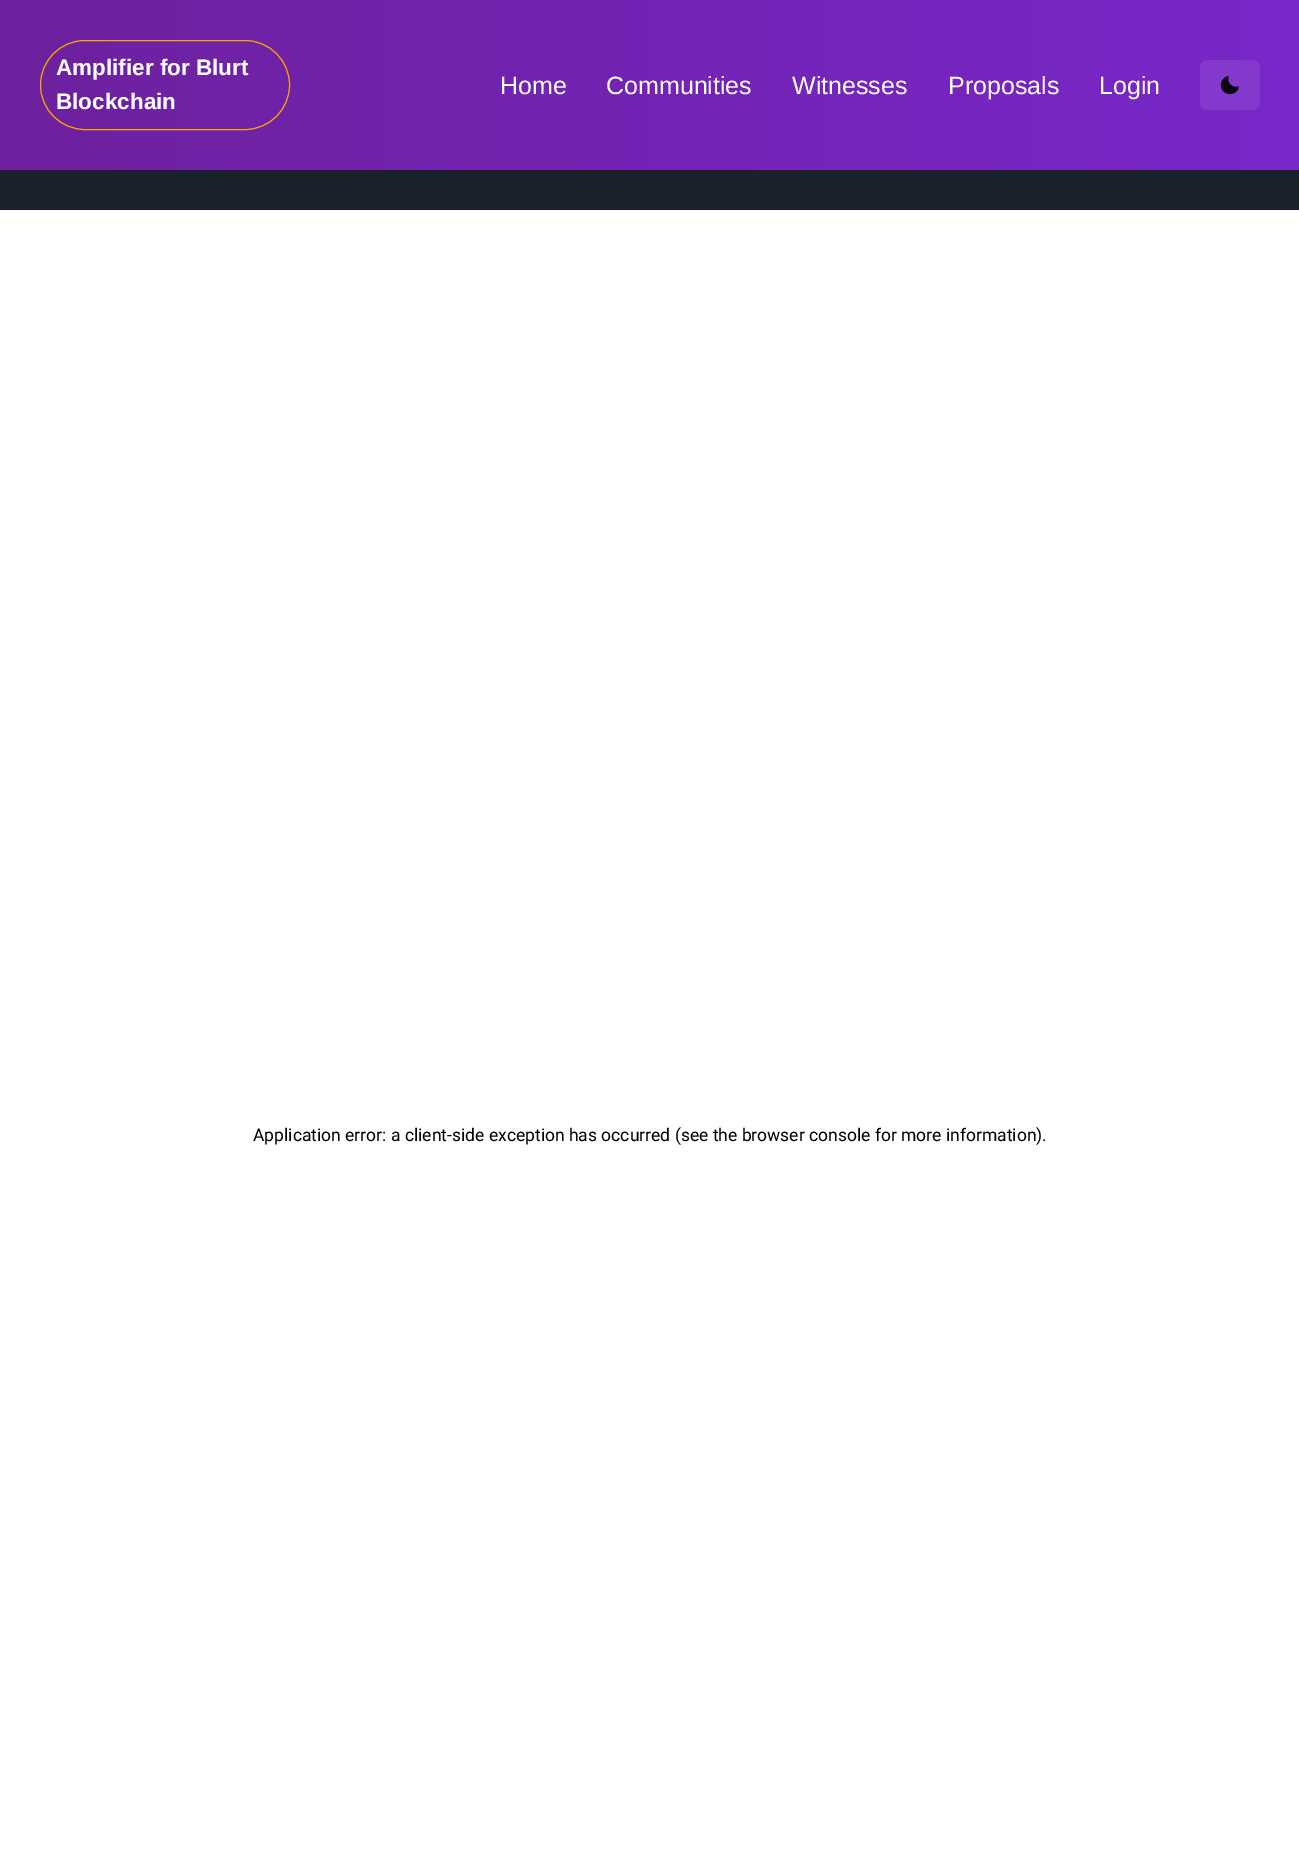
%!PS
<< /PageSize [1299 1849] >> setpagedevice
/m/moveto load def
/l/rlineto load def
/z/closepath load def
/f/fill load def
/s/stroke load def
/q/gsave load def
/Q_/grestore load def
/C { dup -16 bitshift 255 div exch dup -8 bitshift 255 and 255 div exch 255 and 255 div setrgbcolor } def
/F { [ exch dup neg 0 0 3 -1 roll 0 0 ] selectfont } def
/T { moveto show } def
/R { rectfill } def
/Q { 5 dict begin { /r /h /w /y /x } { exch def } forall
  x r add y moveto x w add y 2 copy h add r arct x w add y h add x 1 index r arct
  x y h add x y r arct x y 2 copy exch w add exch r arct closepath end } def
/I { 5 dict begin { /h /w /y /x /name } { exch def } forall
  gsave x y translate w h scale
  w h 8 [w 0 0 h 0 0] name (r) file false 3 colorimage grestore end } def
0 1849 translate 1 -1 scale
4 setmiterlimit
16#1A202C C
0 0 1299 1849 R
q 0 0 m 1299 0 l 0 170 l -1299 0 l z clip newpath
<< /ShadingType 2 /ColorSpace /DeviceRGB /Coords [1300 85 0 85] /Extend [true true] /Function << /FunctionType 2 /Domain [0 1] /C0 [.475 .157 .792] /C1 [.427 .129 .62] /N 1 >> >> shfill Q_
16#FFA500 C
40.5 40.5 249 89 44.5 Q s
/LiberationSans-Bold 22.5 F
16#FFFFFF C
(Amplifier for Blurt) 56 75 T
(Blockchain) 56 109 T
/LiberationSans-Regular 25 F
(Home) 500 94 T
(Communities) 606 94 T
(Witnesses) 792 94 T
(Proposals) 948 94 T
(Login) 1099 94 T
16#8339CC C
1200 60 60 50 8 Q f
(1.rgb) 1220 76 19 19 I
16#FFFFFF C
0 210 1299 1639 R
/Roboto-Regular 17.5 F
16#000000 C
(Application error: a client-side exception has occurred \(see the browser console for more information\).) 253 1141 T
showpage
